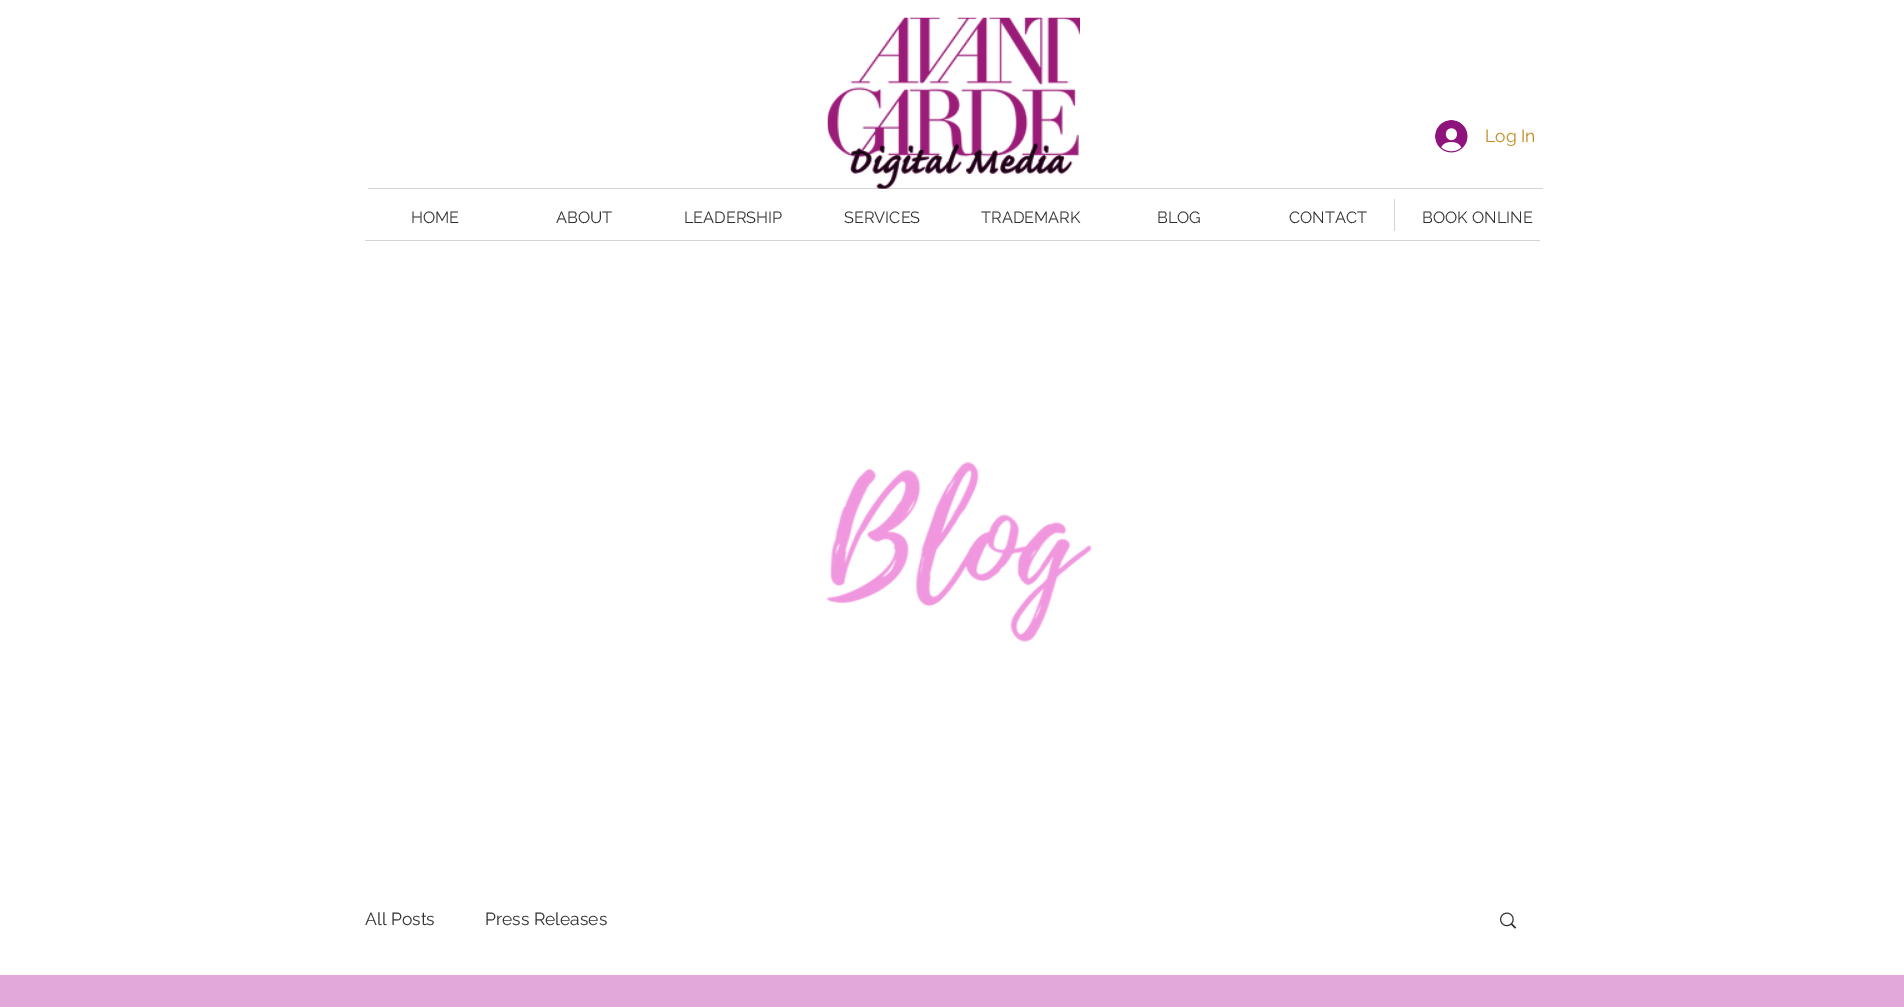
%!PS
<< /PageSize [1904 1007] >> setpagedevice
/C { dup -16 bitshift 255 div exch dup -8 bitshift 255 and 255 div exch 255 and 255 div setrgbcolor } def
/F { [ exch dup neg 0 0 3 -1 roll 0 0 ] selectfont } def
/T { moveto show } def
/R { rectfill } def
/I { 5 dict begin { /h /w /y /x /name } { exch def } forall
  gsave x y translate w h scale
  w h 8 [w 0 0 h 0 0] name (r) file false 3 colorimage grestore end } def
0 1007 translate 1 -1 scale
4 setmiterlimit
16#FFFFFF C
0 0 1904 1007 R
16#D4D4D4 C
368 188 1175 1 R
(1.rgb) 827 17 253 172 I
(2.rgb) 1435 120 33 33 I
/Raleway-Regular 17.5 F
16#C48B21 C
(Log In) 1485 142 T
16#D4D4D4 C
1394 199 1 32 R
/Raleway-Regular 16.25 F
16#303030 C
(HOME) 411 223 T
(ABOUT) 556 223 T
(LEADERSHIP) 684 223 T
(SERVICES) 844 223 T
(TRADEMARK) 981 223 T
(BLOG) 1157 223 T
(CONTACT) 1289 223 T
(BOOK ONLINE) 1422 223 T
16#D4D4D4 C
365 240 1175 1 R
(3.rgb) 826 461 266 182 I
/Raleway-Regular 17.5 F
16#303030 C
(All Posts) 365 925 T
(Press Releases) 485 925 T
(4.rgb) 1500 912 17 17 I
16#E3A8DA C
0 975 1904 32 R
showpage
